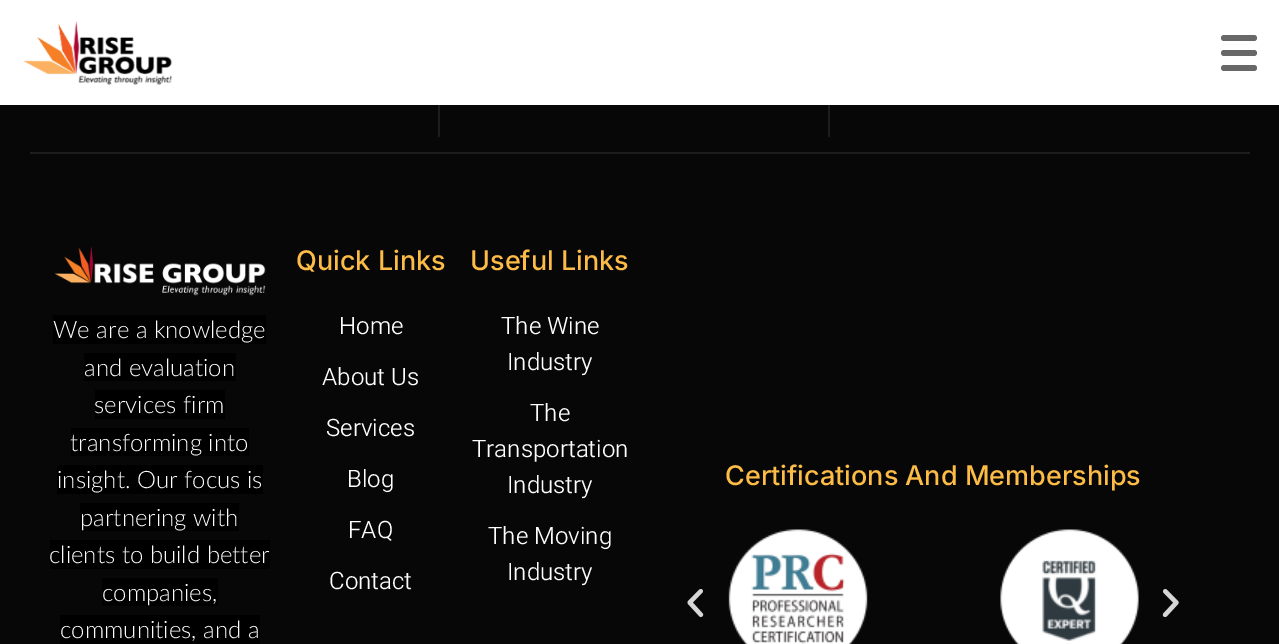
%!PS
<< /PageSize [1279 644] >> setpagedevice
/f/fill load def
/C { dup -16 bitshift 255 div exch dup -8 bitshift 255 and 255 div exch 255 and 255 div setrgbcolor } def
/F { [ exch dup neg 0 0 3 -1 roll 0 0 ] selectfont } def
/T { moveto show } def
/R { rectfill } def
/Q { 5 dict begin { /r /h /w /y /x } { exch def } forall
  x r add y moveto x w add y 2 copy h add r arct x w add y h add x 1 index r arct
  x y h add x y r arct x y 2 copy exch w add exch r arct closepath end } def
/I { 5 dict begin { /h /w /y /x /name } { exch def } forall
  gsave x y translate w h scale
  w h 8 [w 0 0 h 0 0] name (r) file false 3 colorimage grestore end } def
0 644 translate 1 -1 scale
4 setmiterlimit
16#070707 C
0 0 1279 644 R
16#FFFFFF C
0 0 1279 105 R
(1.rgb) 23 21 150 64 I
16#686868 C
1221 50 36 6 3 Q f
1221 35 36 6 3 Q f
1221 65 36 6 3 Q f
16#1D1D1D C
30 152 1220 2 R
828 105 2 32 R
438 105 2 32 R
(2.rgb) 54 246 212 50 I
16#000000 C
53 315 213 29 R
/Lato-Light 24 F
16#FFFFFF C
(We are a knowledge) 53 338 T
16#000000 C
84 353 152 28 R
16#FFFFFF C
(and evaluation) 84 376 T
16#000000 C
95 390 130 29 R
16#FFFFFF C
(services firm) 94 413 T
16#000000 C
71 428 178 28 R
16#FFFFFF C
(transforming into) 70 451 T
16#000000 C
57 465 206 29 R
16#FFFFFF C
(insight. Our focus is) 57 488 T
16#000000 C
80 503 159 28 R
16#FFFFFF C
(partnering with) 80 526 T
16#000000 C
50 540 220 29 R
16#FFFFFF C
(clients to build better) 49 563 T
16#000000 C
102 578 116 28 R
16#FFFFFF C
(companies,) 102 601 T
16#000000 C
60 615 200 29 R
16#FFFFFF C
(communities, and a) 60 638 T
/Inter-Medium 27 F
16#FCBC45 C
(Quick Links) 296 270 T
/Heebo-Light 24 F
16#FFFFFF C
(Home) 339 334 T
(About Us) 322 385 T
(Services) 326 436 T
(Blog) 347 487 T
(FAQ) 348 538 T
(Contact) 329 589 T
/Inter-Medium 27 F
16#FCBC45 C
(Useful Links) 470 270 T
/Heebo-Light 24 F
16#FFFFFF C
(The Wine) 501 334 T
(Industry) 507 370 T
(The) 530 421 T
(Transportation) 472 457 T
(Industry) 507 493 T
(The Moving) 488 544 T
(Industry) 507 580 T
/Inter-Medium 27 F
16#FCBC45 C
(Certifications And Memberships) 725 485 T
(3.rgb) 687 589 17 28 I
(4.rgb) 728 529 140 115 I
(5.rgb) 1000 529 139 115 I
(6.rgb) 1162 589 17 28 I
showpage
